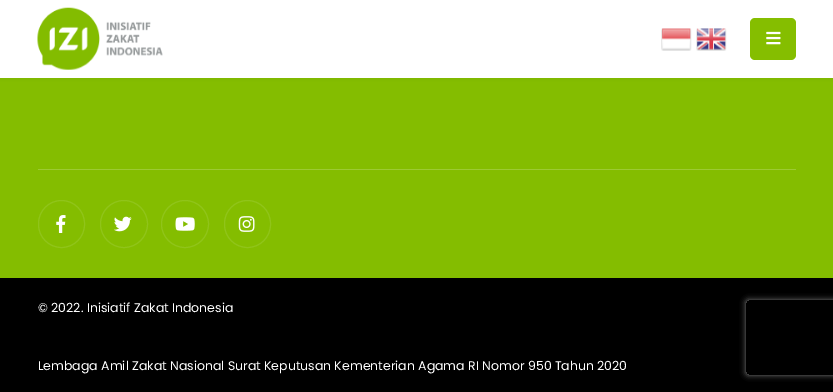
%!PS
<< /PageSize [833 392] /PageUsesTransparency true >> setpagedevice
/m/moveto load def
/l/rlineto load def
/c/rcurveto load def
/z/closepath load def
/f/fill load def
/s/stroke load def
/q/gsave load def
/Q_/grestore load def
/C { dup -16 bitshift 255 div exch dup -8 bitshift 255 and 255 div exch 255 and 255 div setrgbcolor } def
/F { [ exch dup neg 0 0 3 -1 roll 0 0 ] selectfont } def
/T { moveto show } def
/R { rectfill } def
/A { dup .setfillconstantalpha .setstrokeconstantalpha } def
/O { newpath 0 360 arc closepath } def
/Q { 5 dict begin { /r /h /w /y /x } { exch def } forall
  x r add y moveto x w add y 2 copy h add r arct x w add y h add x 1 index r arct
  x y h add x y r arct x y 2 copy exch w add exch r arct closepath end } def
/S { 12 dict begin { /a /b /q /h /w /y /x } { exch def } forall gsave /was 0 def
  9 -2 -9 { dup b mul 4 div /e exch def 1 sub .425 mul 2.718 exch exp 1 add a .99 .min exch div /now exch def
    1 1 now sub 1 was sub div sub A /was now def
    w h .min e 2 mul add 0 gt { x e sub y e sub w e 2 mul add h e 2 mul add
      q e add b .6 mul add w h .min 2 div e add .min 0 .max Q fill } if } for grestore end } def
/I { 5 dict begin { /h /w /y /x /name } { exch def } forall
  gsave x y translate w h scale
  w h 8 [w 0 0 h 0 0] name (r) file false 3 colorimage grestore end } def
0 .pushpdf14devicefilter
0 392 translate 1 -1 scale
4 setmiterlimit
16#84BD00 C
0 0 833 392 R
16#000000 C
0 0 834 78 0 2 .06 S
16#FFFFFF C
0 0 833 78 R
(1.rgb) 37 7 126 63 I
(2.rgb) 661 28 31 23 I
(3.rgb) 696 28 31 23 I
16#85BE00 C
750 18 46 42 5 Q f
(4.rgb) 766 31 15 14 I
16#9DCA33 C
38 169 758 1 R
16#90C41A C
38.5 200.5 46 47 23 Q s
(5.rgb) 56 215 10 18 I
124 224 23.5 O s
(6.rgb) 114 216 18 16 I
185 224 23.5 O s
(7.rgb) 175 217 20 14 I
224.5 200.5 46 47 23 Q s
(8.rgb) 238 216 17 16 I
16#000000 C
0 278 833 114 R
/Poppins-Regular 12.5 F
16#FFFFFF C
(© 2022. Inisiatif Zakat Indonesia) 38 312 T
(Lembaga Amil Zakat Nasional Surat Keputusan Kementerian Agama RI Nomor 950 Tahun 2020) 38 370 T
q
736 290 m 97 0 l 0 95 l -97 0 l z 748.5 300 m 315 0 l 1.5 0 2.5 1 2.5 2.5 c 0 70 l 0 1.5 -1 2.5 -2.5 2.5 c -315 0 l -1.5 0 -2.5 -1 -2.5 -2.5 c 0 -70 l 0 -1.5 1 -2.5 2.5 -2.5 c z eoclip newpath
16#808080 C
746 300 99 75 2.5 3 1 S
Q_
.poppdf14devicefilter showpage
